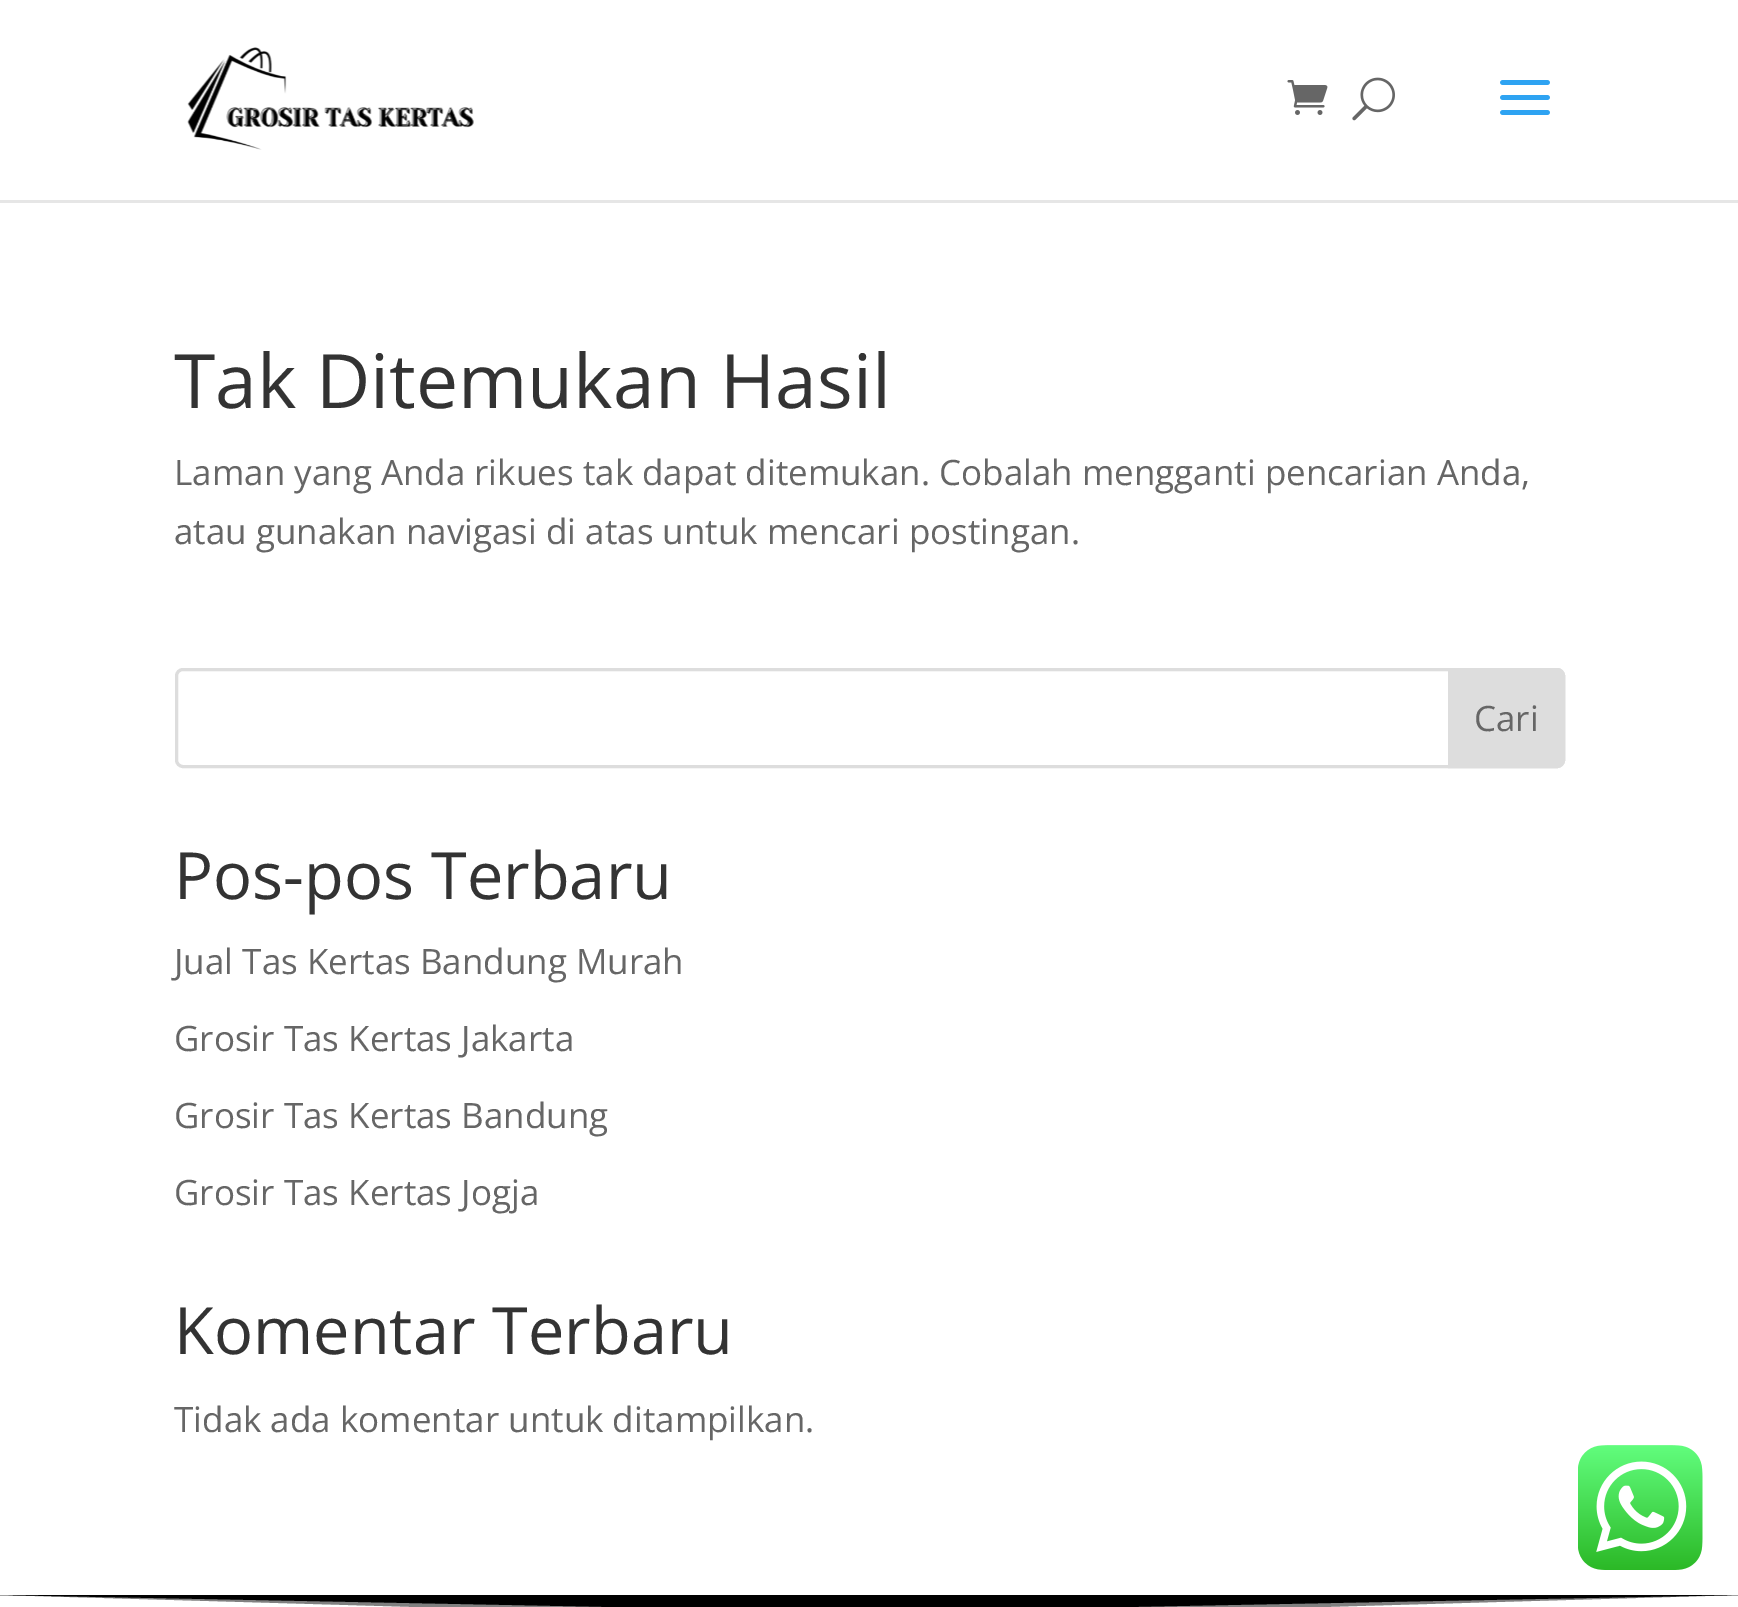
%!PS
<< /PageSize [1738 1607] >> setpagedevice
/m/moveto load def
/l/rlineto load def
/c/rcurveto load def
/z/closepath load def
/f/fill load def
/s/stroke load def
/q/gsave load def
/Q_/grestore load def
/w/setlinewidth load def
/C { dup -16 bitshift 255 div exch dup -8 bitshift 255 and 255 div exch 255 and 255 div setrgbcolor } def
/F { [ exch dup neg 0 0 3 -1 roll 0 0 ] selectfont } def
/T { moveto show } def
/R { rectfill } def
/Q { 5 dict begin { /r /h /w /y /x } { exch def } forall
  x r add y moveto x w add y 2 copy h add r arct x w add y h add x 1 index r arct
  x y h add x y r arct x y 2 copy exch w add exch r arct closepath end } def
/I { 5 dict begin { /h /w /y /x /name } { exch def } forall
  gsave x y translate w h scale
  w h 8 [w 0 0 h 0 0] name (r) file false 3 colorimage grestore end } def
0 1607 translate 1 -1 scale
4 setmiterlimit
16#FFFFFF C
0 0 1738 1607 R
16#E6E6E6 C
0 200 1738 3 R
(1.rgb) 187 47 287 103 I
(2.rgb) 1287 80 41 35 I
(3.rgb) 1352 77 43 44 I
(4.rgb) 1500 80 50 35 I
/OpenSans-Regular 75 F
16#333333 C
(Tak Ditemukan Hasil) 174 408 T
/OpenSans-Regular 35 F
16#666666 C
(Laman yang Anda rikues tak dapat ditemukan. Cobalah mengganti pencarian Anda,) 174 485 T
(atau gunakan navigasi di atas untuk mencari postingan.) 174 544 T
16#DDDDDD C
3 w
176.5 669.5 1387 97 6.5 Q s
1449.5 669.5 m 107.5 0 l 3.5 0 6.5 3 6.5 6.5 c 0 84 l 0 3.5 -3 6.5 -6.5 6.5 c -107.5 0 l z q f Q_
s
16#666666 C
(Cari) 1474 731 T
/OpenSans-Regular 65 F
16#333333 C
(Pos-pos Terbaru) 174 899 T
/OpenSans-Regular 35 F
16#666666 C
(Jual Tas Kertas Bandung Murah) 174 974 T
(Grosir Tas Kertas Jakarta) 174 1051 T
(Grosir Tas Kertas Bandung) 174 1128 T
(Grosir Tas Kertas Jogja) 174 1205 T
/OpenSans-Regular 65 F
16#333333 C
(Komentar Terbaru) 174 1354 T
/OpenSans-Regular 35 F
16#666666 C
(Tidak ada komentar untuk ditampilkan.) 174 1432 T
16#808080 C
870 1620 m 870 -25 l -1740 0 l z f
16#000000 C
870 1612 m 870 -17 l -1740 0 l z f
(5.rgb) 1578 1445 125 125 I
showpage
